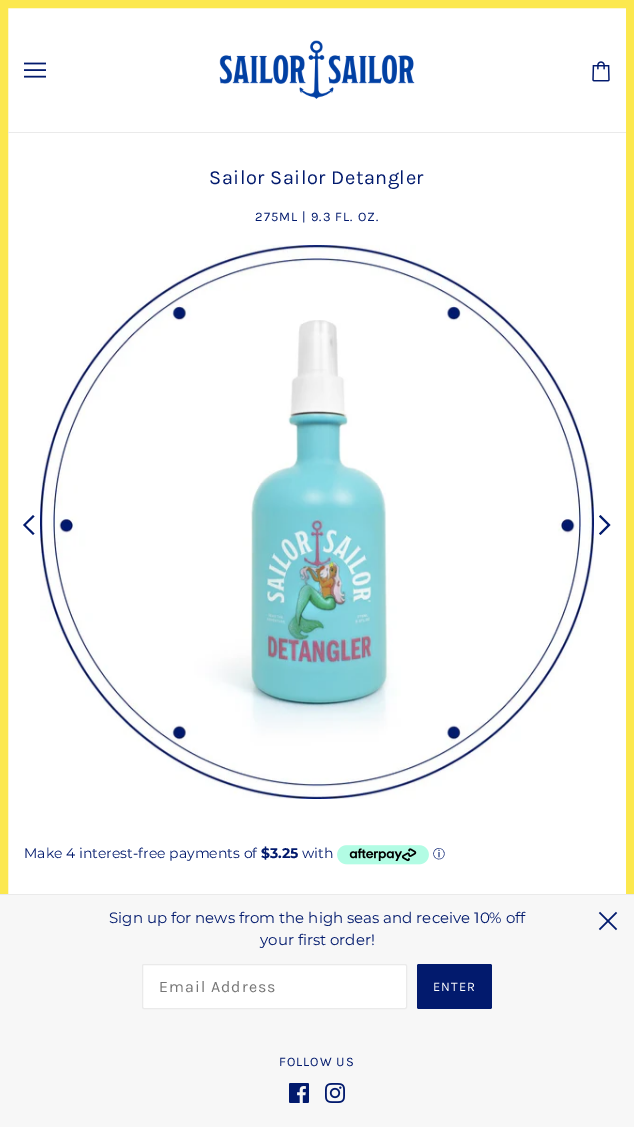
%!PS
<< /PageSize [634 1127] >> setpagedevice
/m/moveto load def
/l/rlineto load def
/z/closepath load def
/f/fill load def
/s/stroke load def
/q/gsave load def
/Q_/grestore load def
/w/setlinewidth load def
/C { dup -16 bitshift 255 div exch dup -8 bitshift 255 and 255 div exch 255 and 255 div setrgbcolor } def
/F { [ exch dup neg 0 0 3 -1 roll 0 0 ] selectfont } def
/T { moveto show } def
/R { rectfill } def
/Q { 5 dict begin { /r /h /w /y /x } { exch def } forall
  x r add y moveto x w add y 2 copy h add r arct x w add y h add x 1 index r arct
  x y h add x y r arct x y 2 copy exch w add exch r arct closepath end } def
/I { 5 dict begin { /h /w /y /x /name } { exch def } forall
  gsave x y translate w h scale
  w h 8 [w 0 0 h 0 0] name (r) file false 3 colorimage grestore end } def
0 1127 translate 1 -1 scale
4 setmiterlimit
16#FFFFFF C
0 0 634 1127 R
16#FCE84E C
8 w
4 4 626 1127 rectstroke
16#EAEAEA C
8 132 618 1 R
(1.rgb) 24 62 22 16 I
(2.rgb) 219 40 196 59 I
(3.rgb) 592 61 18 21 I
/Karla-Regular 20 F
16#021A6D C
209 184 m .5 0 (Sailor Sailor Detangler) ashow
/Karla-Regular 13 F
255 221 m 1 0 (275ML | 9.3 FL. OZ.) ashow
(4.rgb) 40 245 554 554 I
25.5 525 m 9 -8.5 l -1.5 -1.5 l -10 10 l 10 10 l 1.5 -1.5 l z f
607.5 525 m -8.5 8.5 l 1.5 1.5 l 10 -10 l -10 -10 l -1.5 1.5 l z f
/Montserrat-Regular 14 F
(Make 4 interest-free payments of) 24 858 T
/Montserrat-Bold 14 F
($3.25) 261 858 T
/Montserrat-Regular 14 F
(with) 302 858 T
(5.rgb) 337 845 92 20 I
/WenQuanYiZenHei-Medium 12 F
(ⓘ) 433 858 T
16#F7F7F7 C
0 895 634 232 R
16#EAEAEA C
0 894 634 1 R
/Montserrat-Regular 15 F
16#021A6D C
(Sign up for news from the high seas and receive 10% off) 109 923 T
(your first order!) 260 945 T
16#FFFFFF C
142.5 964.5 264 44 1.5 Q q f Q_
16#EAEAEA C
1 w
s
/Karla-Regular 16 F
16#757575 C
159 992 m 1 0 (Email Address) ashow
16#021A6D C
417 964 75 45 2 Q f
/Karla-Regular 13 F
16#FFFFFF C
433 991 m 1 0 (ENTER) ashow
(6.rgb) 598 911 20 20 I
16#021A6D C
279 1066 m 1 0 (FOLLOW US) ashow
(7.rgb) 289 1083 20 20 I
(8.rgb) 325 1083 20 20 I
showpage
